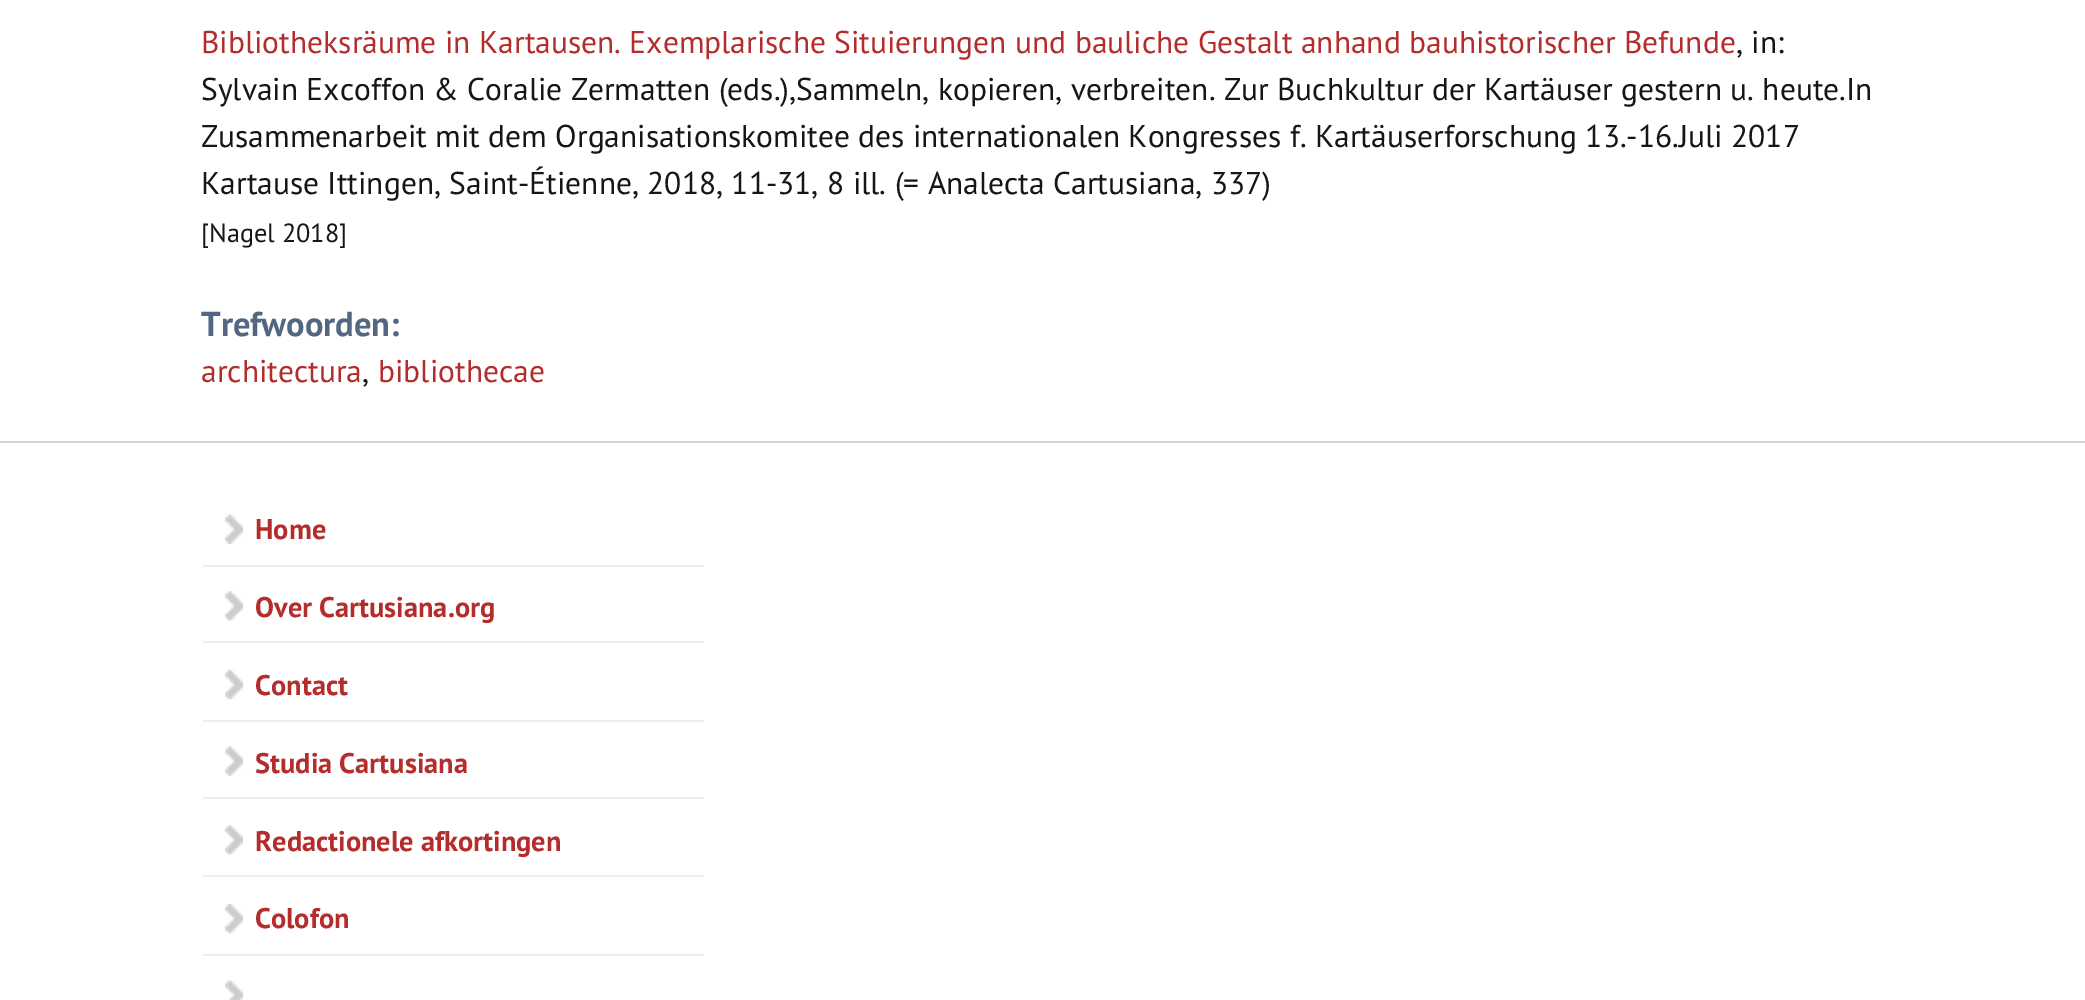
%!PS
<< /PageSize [2085 1000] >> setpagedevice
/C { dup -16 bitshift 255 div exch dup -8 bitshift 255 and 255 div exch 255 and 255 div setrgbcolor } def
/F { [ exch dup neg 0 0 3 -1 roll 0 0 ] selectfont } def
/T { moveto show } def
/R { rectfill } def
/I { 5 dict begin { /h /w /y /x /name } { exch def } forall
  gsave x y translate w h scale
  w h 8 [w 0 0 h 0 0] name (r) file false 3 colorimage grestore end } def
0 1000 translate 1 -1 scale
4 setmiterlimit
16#FFFFFF C
0 0 2085 1000 R
/PTSans-Regular 31.5 F
16#B52C2C C
(Bibliotheksräume in Kartausen. Exemplarische Situierungen und bauliche Gestalt anhand bauhistorischer Befunde) 201 53 T
16#161616 C
(, in:) 1736 53 T
(Sylvain Excoffon & Coralie Zermatten \(eds.\),Sammeln, kopieren, verbreiten. Zur Buchkultur der Kartäuser gestern u. heute.In) 201 100 T
(Zusammenarbeit mit dem Organisationskomitee des internationalen Kongresses f. Kartäuserforschung 13.-16.Juli 2017) 201 147 T
(Kartause Ittingen, Saint-Étienne, 2018, 11-31, 8 ill. \(= Analecta Cartusiana, 337\)) 201 194 T
/PTSans-Regular 26.25 F
([Nagel 2018]) 201 242 T
/PTSans-Bold 34.5 F
16#536682 C
(Trefwoorden:) 201 336 T
/PTSans-Regular 31.5 F
16#B52C2C C
(architectura) 201 382 T
16#161616 C
(,) 362 382 T
16#B52C2C C
(bibliothecae) 378 382 T
16#D6D6D6 C
0 441 2085 2 R
(1.rgb) 225 514 18 30 I
16#EEEEEE C
203 565 501 2 R
/PTSans-Bold 28.4 F
16#B52C2C C
(Home) 255 539 T
(2.rgb) 225 591 18 30 I
16#EEEEEE C
203 641 501 2 R
16#B52C2C C
(Over Cartusiana.org) 255 617 T
(3.rgb) 225 670 18 30 I
16#EEEEEE C
203 720 501 2 R
16#B52C2C C
(Contact) 255 695 T
(4.rgb) 225 746 18 30 I
16#EEEEEE C
203 797 501 2 R
16#B52C2C C
(Studia Cartusiana) 255 773 T
(2.rgb) 225 825 18 30 I
16#EEEEEE C
203 875 501 2 R
16#B52C2C C
(Redactionele afkortingen) 255 851 T
(3.rgb) 225 904 18 30 I
16#EEEEEE C
203 954 501 2 R
16#B52C2C C
(Colofon) 255 928 T
(5.rgb) 225 980 18 20 I
showpage
